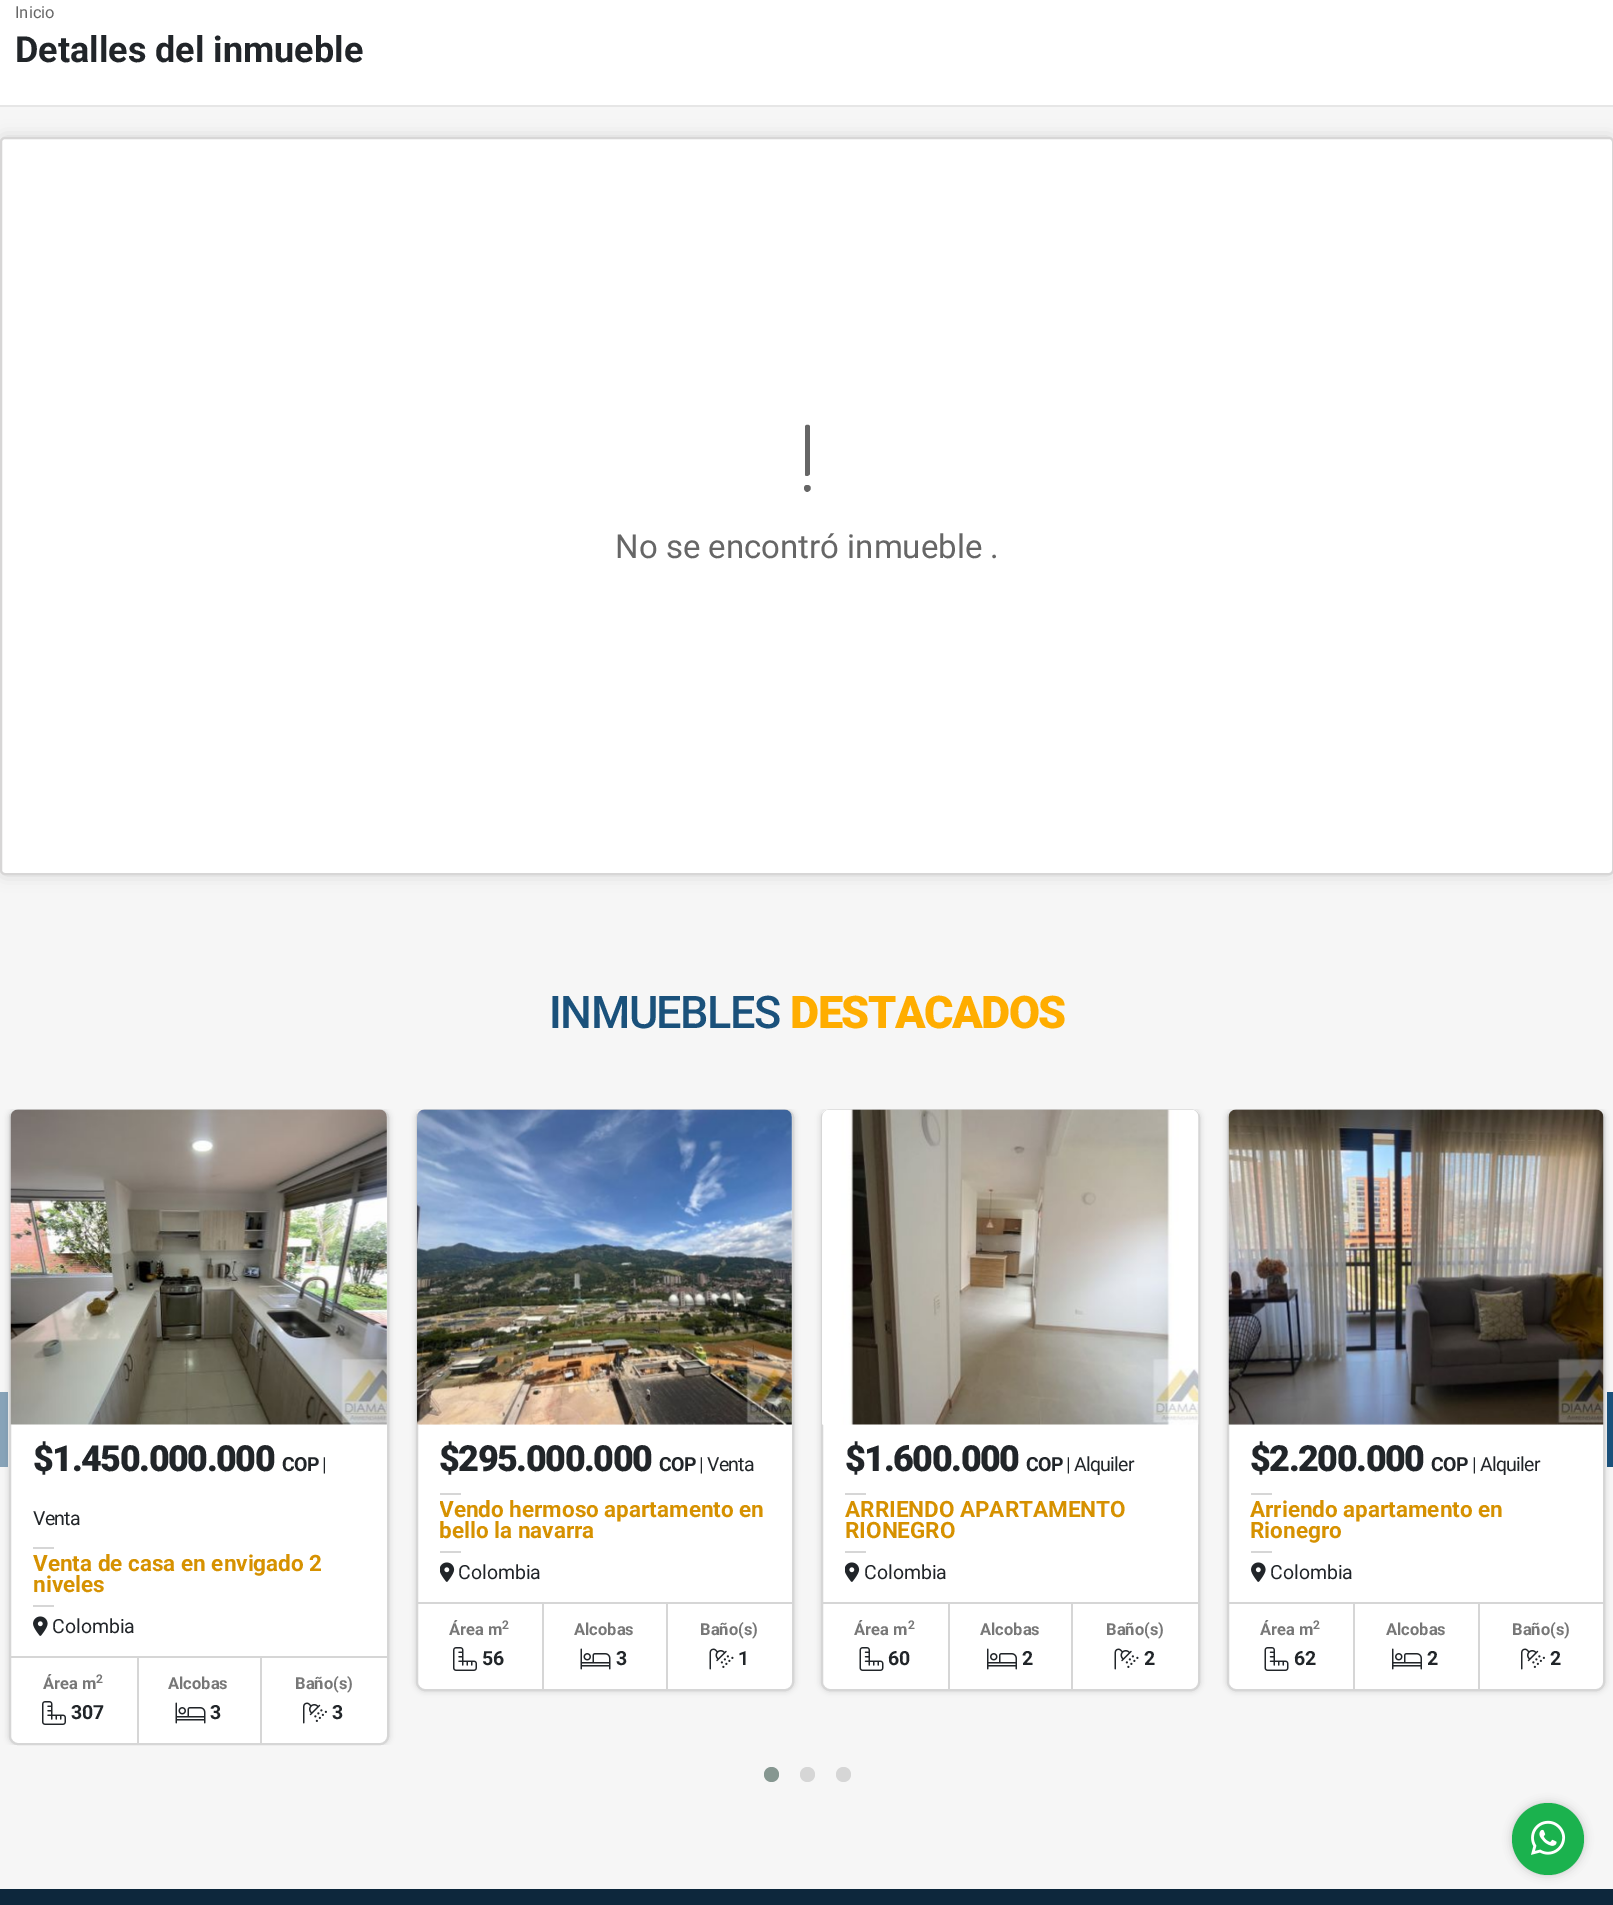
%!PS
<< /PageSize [1613 1905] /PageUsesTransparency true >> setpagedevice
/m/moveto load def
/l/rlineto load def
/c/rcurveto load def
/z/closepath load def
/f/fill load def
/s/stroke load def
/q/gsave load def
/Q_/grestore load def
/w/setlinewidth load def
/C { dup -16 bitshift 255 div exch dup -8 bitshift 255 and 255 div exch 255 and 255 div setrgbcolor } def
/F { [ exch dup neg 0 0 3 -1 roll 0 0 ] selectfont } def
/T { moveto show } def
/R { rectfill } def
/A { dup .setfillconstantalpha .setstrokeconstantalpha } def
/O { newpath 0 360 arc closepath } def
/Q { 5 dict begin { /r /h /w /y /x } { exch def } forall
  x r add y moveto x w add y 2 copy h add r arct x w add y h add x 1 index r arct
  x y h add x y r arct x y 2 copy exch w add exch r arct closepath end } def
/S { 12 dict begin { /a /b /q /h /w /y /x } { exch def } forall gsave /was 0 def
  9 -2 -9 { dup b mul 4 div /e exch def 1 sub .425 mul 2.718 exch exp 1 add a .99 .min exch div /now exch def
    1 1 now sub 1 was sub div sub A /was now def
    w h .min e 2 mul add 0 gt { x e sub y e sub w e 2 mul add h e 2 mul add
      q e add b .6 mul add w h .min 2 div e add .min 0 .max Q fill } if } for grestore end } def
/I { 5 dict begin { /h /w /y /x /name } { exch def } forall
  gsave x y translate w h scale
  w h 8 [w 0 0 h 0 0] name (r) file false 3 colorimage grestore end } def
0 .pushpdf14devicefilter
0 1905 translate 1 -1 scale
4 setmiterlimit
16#F6F6F6 C
0 0 1613 1905 R
16#FFFFFF C
0 0 1613 105 R
16#E6E6E6 C
0 105 1613 2 R
/Roboto-Regular 16.5 F
16#666666 C
(Inicio) 15 18 T
/Roboto-Bold 36 F
16#212529 C
(Detalles del inmueble) 15 62 T
16#B0B0B0 C
0 137 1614 738 5 8 .5 S
16#FFFFFF C
1 138 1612 736 4 Q q f Q_
16#D7D6D6 C
2 w
s
16#666666 C
810 427 m 0 -3 -5 -3 -5 0 c 0 48 l 1 2 4 1 5 -1 c z 807 492 m 5 -1 5 -7 0 -7 c -4 0 -4 6 0 7 c z f
/Roboto-Regular 33 F
(No se encontró inmueble .) 615 558 T
/Roboto-Medium 45 F
16#1A517B C
549 1028 m -1.5 0 (INMUEBLES) ashow
/Roboto-Black 45 F
16#FFAD00 C
790 1028 m -1.5 0 (DESTACADOS) ashow
q
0 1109 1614 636 rectclip
16#A3A3A3 C
9 1109 380 636 9 3 .5 S
Q_
0.5 A
16#1A517B C
0 1392 8 75 R
q
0 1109 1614 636 rectclip
1 A
16#A3A3A3 C
1227 1109 378 582 9 3 .5 S
Q_
1 A
1607 1392 6 75 R
16#FFFFFF C
10 1110 378 634 8 Q q f Q_
16#D6D6D6 C
s
(1.rgb) 10 1109 377 316 I
/Roboto-Black 36 F
16#212529 C
33 1471 m -1.5 0 ($1.450.000.000) ashow
/Roboto-Bold 19.5 F
282 1471 m -.75 0 (COP) ashow
/Roboto-Regular 19.5 F
322 1471 m -.75 0 (|) ashow
33 1525 m -.75 0 (Venta) ashow
16#D6D6D6 C
33 1547 21 2 R
/Roboto-Bold 22.5 F
16#D69100 C
(Venta de casa en envigado 2) 33 1571 T
(niveles) 33 1592 T
16#D6D6D6 C
33 1605 21 2 R
(2.rgb) 33 1616 15 20 I
/Roboto-Regular 19.5 F
16#212529 C
(Colombia) 52 1633 T
16#D6D6D6 C
11 1656 376 2 R
/Roboto-Bold 16.5 F
16#777777 C
(Área m) 43 1689 T
/Roboto-Bold 12 F
(2) 96 1683 T
(3.rgb) 42 1701 24 24 I
/Roboto-Bold 19.5 F
16#212529 C
(307) 71 1719 T
16#D6D6D6 C
260 1658 2 85 R
137 1658 2 85 R
/Roboto-Bold 16.5 F
16#777777 C
(Alcobas) 168 1689 T
(4.rgb) 175 1702 31 22 I
/Roboto-Bold 19.5 F
16#212529 C
(3) 210 1719 T
/Roboto-Bold 16.5 F
16#777777 C
(Baño\(s\)) 295 1689 T
(5.rgb) 303 1702 24 22 I
/Roboto-Bold 19.5 F
16#212529 C
(3) 332 1719 T
q
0 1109 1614 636 rectclip
16#A3A3A3 C
416 1109 378 582 9 3 .5 S
Q_
16#FFFFFF C
417 1110 376 580 8 Q q f Q_
16#D6D6D6 C
s
(6.rgb) 417 1109 375 316 I
/Roboto-Black 36 F
16#212529 C
439 1471 m -1.5 0 ($295.000.000) ashow
/Roboto-Bold 19.5 F
659 1471 m -.75 0 (COP) ashow
/Roboto-Regular 19.5 F
699 1471 m -.75 0 (| Venta) ashow
16#D6D6D6 C
440 1493 21 2 R
q
440 1500 330 45 rectclip
/Roboto-Bold 22.5 F
16#D69100 C
(Vendo hermoso apartamento en) 439 1517 T
Q_
/Roboto-Bold 22.5 F
16#D69100 C
(bello la navarra) 439 1538 T
16#D6D6D6 C
440 1551 21 2 R
(7.rgb) 440 1562 15 20 I
/Roboto-Regular 19.5 F
16#212529 C
(Colombia) 458 1579 T
16#D6D6D6 C
417 1602 375 2 R
/Roboto-Bold 16.5 F
16#777777 C
(Área m) 449 1635 T
/Roboto-Bold 12 F
(2) 502 1629 T
(3.rgb) 453 1647 24 24 I
/Roboto-Bold 19.5 F
16#212529 C
(56) 482 1665 T
16#D6D6D6 C
666 1604 2 85 R
542 1604 2 85 R
/Roboto-Bold 16.5 F
16#777777 C
(Alcobas) 574 1635 T
(4.rgb) 580 1648 31 22 I
/Roboto-Bold 19.5 F
16#212529 C
(3) 616 1665 T
/Roboto-Bold 16.5 F
16#777777 C
(Baño\(s\)) 700 1635 T
(8.rgb) 709 1648 25 22 I
/Roboto-Bold 19.5 F
16#212529 C
(1) 738 1665 T
q
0 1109 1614 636 rectclip
16#A3A3A3 C
821 1109 379 582 9 3 .5 S
Q_
16#FFFFFF C
822 1110 377 580 8 Q q f Q_
16#D6D6D6 C
s
(9.rgb) 822 1109 377 316 I
/Roboto-Black 36 F
16#212529 C
845 1471 m -1.5 0 ($1.600.000) ashow
/Roboto-Bold 19.5 F
1026 1471 m -.75 0 (COP) ashow
/Roboto-Regular 19.5 F
1066 1471 m -.75 0 (| Alquiler) ashow
16#D6D6D6 C
845 1493 21 2 R
/Roboto-Bold 22.5 F
16#D69100 C
(ARRIENDO APARTAMENTO) 845 1517 T
(RIONEGRO) 845 1538 T
16#D6D6D6 C
845 1551 21 2 R
(7.rgb) 845 1562 15 20 I
/Roboto-Regular 19.5 F
16#212529 C
(Colombia) 864 1579 T
16#D6D6D6 C
822 1602 377 2 R
/Roboto-Bold 16.5 F
16#777777 C
(Área m) 854 1635 T
/Roboto-Bold 12 F
(2) 908 1629 T
(10.rgb) 859 1647 25 24 I
/Roboto-Bold 19.5 F
16#212529 C
(60) 888 1665 T
16#D6D6D6 C
1071 1604 2 85 R
948 1604 2 85 R
/Roboto-Bold 16.5 F
16#777777 C
(Alcobas) 980 1635 T
(11.rgb) 987 1648 30 22 I
/Roboto-Bold 19.5 F
16#212529 C
(2) 1022 1665 T
/Roboto-Bold 16.5 F
16#777777 C
(Baño\(s\)) 1106 1635 T
(8.rgb) 1114 1648 25 22 I
/Roboto-Bold 19.5 F
16#212529 C
(2) 1144 1665 T
16#FFFFFF C
1228 1110 376 580 8 Q q f Q_
16#D6D6D6 C
s
(12.rgb) 1228 1109 376 316 I
/Roboto-Black 36 F
16#212529 C
1250 1471 m -1.5 0 ($2.200.000) ashow
/Roboto-Bold 19.5 F
1431 1471 m -.75 0 (COP) ashow
/Roboto-Regular 19.5 F
1472 1471 m -.75 0 (| Alquiler) ashow
16#D6D6D6 C
1251 1493 21 2 R
/Roboto-Bold 22.5 F
16#D69100 C
(Arriendo apartamento en) 1250 1517 T
(Rionegro) 1250 1538 T
16#D6D6D6 C
1251 1551 21 2 R
(2.rgb) 1251 1562 15 20 I
/Roboto-Regular 19.5 F
16#212529 C
(Colombia) 1270 1579 T
16#D6D6D6 C
1229 1602 375 2 R
/Roboto-Bold 16.5 F
16#777777 C
(Área m) 1260 1635 T
/Roboto-Bold 12 F
(2) 1313 1629 T
(10.rgb) 1264 1647 25 24 I
/Roboto-Bold 19.5 F
16#212529 C
(62) 1294 1665 T
16#D6D6D6 C
1478 1604 2 85 R
1353 1604 2 85 R
/Roboto-Bold 16.5 F
16#777777 C
(Alcobas) 1386 1635 T
(11.rgb) 1392 1648 30 22 I
/Roboto-Bold 19.5 F
16#212529 C
(2) 1427 1665 T
/Roboto-Bold 16.5 F
16#777777 C
(Baño\(s\)) 1512 1635 T
(5.rgb) 1521 1648 24 22 I
/Roboto-Bold 19.5 F
16#212529 C
(2) 1550 1665 T
16#869791 C
771.5 1774.5 7.5 O f
16#D6D6D6 C
807.5 1774.5 7.5 O f
843.5 1774.5 7.5 O f
16#0D273C C
0 1889 1613 16 R
16#000000 C
1512 1803 72 72 36 4.5 .2 S
16#1BB24E C
1548 1839 36 O f
(13.rgb) 1531 1820 35 35 I
.poppdf14devicefilter showpage
